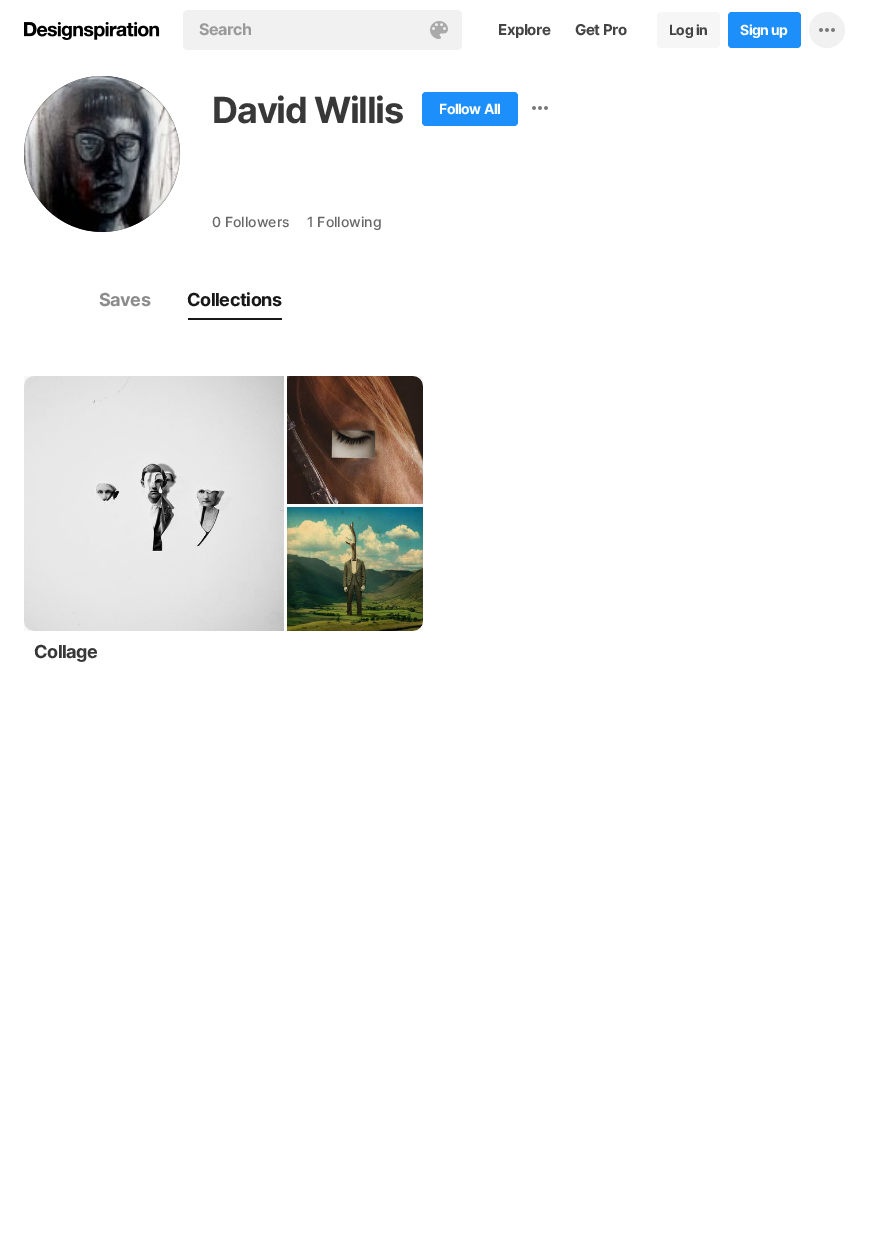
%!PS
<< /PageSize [869 1260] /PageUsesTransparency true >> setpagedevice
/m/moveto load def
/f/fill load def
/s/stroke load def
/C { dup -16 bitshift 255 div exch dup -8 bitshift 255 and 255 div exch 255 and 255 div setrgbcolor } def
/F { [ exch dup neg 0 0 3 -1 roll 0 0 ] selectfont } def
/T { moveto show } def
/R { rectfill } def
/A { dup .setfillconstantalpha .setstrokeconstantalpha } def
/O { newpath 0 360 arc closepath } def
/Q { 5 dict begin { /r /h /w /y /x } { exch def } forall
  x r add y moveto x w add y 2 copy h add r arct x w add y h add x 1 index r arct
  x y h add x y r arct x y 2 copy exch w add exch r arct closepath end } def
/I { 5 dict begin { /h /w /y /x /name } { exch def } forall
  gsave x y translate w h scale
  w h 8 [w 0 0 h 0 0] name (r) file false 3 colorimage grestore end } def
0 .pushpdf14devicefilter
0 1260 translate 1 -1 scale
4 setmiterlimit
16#FFFFFF C
0 0 869 1260 R
(1.rgb) 24 22 136 18 I
16#F1F1F1 C
183 10 279 40 5 Q f
/Inter-Bold 16 F
16#9A9A9A C
199 35 m -.5 0 (Search) ashow
(2.rgb) 430 21 18 18 I
/Inter-Bold 15 F
16#444444 C
498 35 m -.5 0 (Explore) ashow
575 35 m -.5 0 (Get Pro) ashow
16#F6F6F6 C
657 12 63 36 4 Q f
/Inter-Bold 14 F
16#444444 C
669 35 m -.5 0 (Log in) ashow
16#1D8FFB C
728 12 73 36 4 Q f
16#FFFFFF C
740 35 m -.5 0 (Sign up) ashow
16#F1F1F1 C
827 30 18 O f
(3.rgb) 819 28 16 4 I
16#303033 C
102 154 78 O f
(4.rgb) 24 76 156 156 I
0.1 A
16#000000 C
102 154 77.5 O s
/Inter-Bold 36 F
1 A
16#383838 C
212 123 m -1.25 0 (David Willis) ashow
16#1D8FFB C
422 92 96 34 4 Q f
/Inter-Bold 14 F
16#FFFFFF C
439 114 m -.5 0 (Follow All) ashow
(5.rgb) 532 106 16 4 I
/Inter-Medium 14 F
16#676767 C
(0 Followers) 212 227 T
(1 Following) 307 227 T
/Inter-Bold 18 F
16#8C8C8C C
99 306 m -.5 0 (Saves) ashow
16#181818 C
187 306 m -.5 0 (Collections) ashow
188 318 94 2 R
(6.rgb) 24 376 260 255 I
0.03 A
16#000000 C
24 376 260 255 R
1 A
(7.rgb) 287 376 136 128 I
0.03 A
287 376 136 128 R
1 A
(8.rgb) 287 507 136 124 I
0.03 A
287 507 136 124 R
1 A
16#383838 C
34 658 m -.5 0 (Collage) ashow
.poppdf14devicefilter showpage
